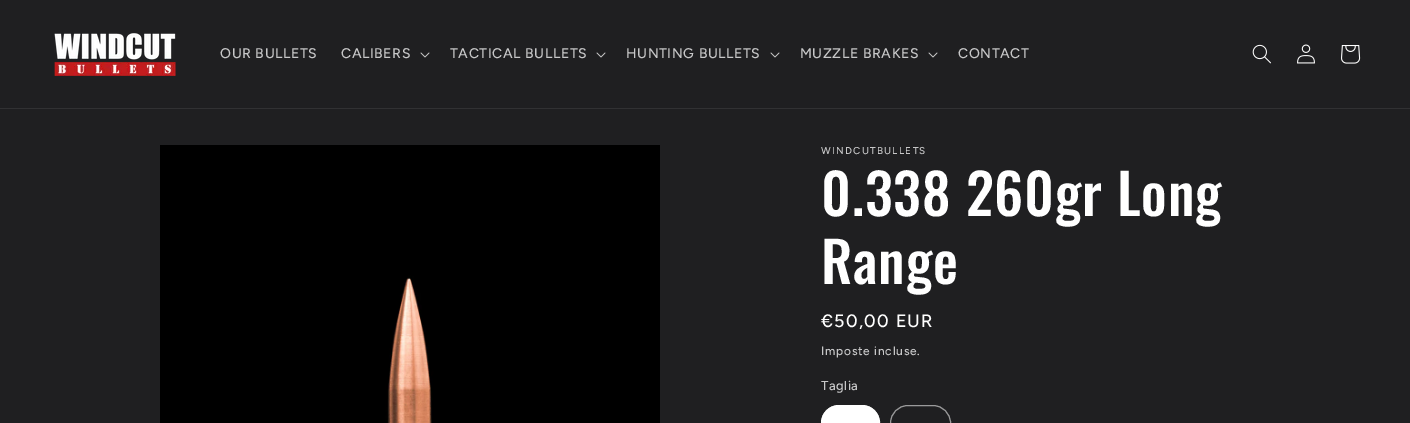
%!PS
<< /PageSize [1410 423] /PageUsesTransparency true >> setpagedevice
/m/moveto load def
/f/fill load def
/s/stroke load def
/C { dup -16 bitshift 255 div exch dup -8 bitshift 255 and 255 div exch 255 and 255 div setrgbcolor } def
/F { [ exch dup neg 0 0 3 -1 roll 0 0 ] selectfont } def
/R { rectfill } def
/A { dup .setfillconstantalpha .setstrokeconstantalpha } def
/Q { 5 dict begin { /r /h /w /y /x } { exch def } forall
  x r add y moveto x w add y 2 copy h add r arct x w add y h add x 1 index r arct
  x y h add x y r arct x y 2 copy exch w add exch r arct closepath end } def
/I { 5 dict begin { /h /w /y /x /name } { exch def } forall
  gsave x y translate w h scale
  w h 8 [w 0 0 h 0 0] name (r) file false 3 colorimage grestore end } def
0 .pushpdf14devicefilter
0 423 translate 1 -1 scale
4 setmiterlimit
16#1F1F21 C
0 0 1410 423 R
16#313133 C
0 108 1410 1 R
(1.rgb) 54 33 122 43 I
/Figtree-Medium 14 F
16#C7C7C8 C
220 58 m .6 0 (OUR BULLETS) ashow
341 58 m .6 0 (CALIBERS) ashow
(2.rgb) 420 52 10 6 I
450 58 m .6 0 (TACTICAL BULLETS) ashow
(2.rgb) 596 52 10 6 I
626 58 m .6 0 (HUNTING BULLETS) ashow
(2.rgb) 770 52 10 6 I
800 58 m .6 0 (MUZZLE BRAKES) ashow
(2.rgb) 928 52 10 6 I
958 58 m .6 0 (CONTACT) ashow
(3.rgb) 1252 44 19 20 I
(4.rgb) 1297 44 18 20 I
(5.rgb) 1341 45 20 19 I
(6.rgb) 160 145 500 278 I
/Figtree-Medium 10 F
821 154 m 1.25 0 (WINDCUTBULLETS) ashow
/Oswald-Medium 56 F
16#FFFFFF C
821 216 m .8 0 (0.338 260gr Long) ashow
821 284 m .8 0 (Range) ashow
/Figtree-Medium 18 F
821 327 m 1.25 0 (€50,00 EUR) ashow
/Figtree-Medium 12 F
16#C7C7C8 C
821 355 m .75 0 (Imposte incluse.) ashow
/Figtree-Medium 13 F
821 390 m .5 0 (Taglia) ashow
16#FFFFFF C
821 405 59 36 18 Q f
0.55 A
821.5 405.5 58 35 17.5 Q s
1 A
16#9A9A9B C
890.5 405.5 60 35 17.5 Q s
.poppdf14devicefilter showpage
